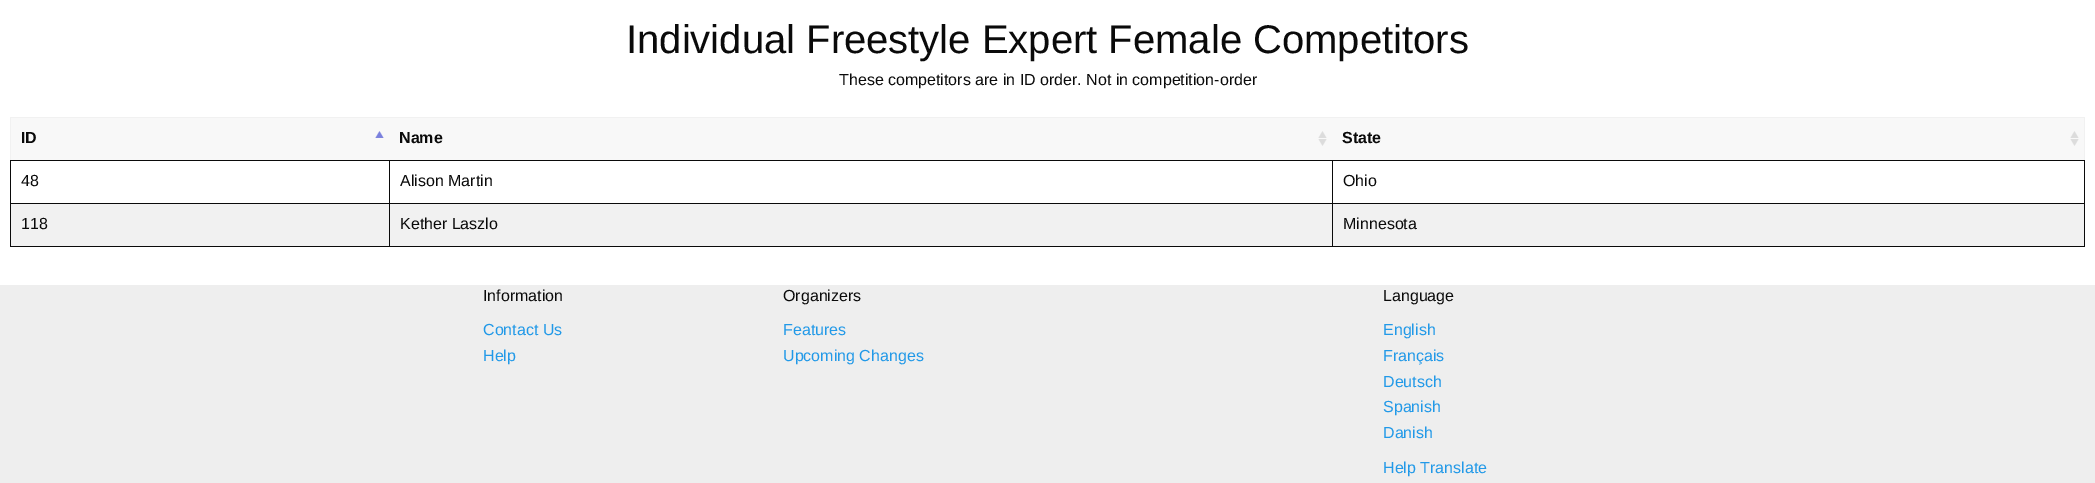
%!PS
<< /PageSize [2095 483] >> setpagedevice
/C { dup -16 bitshift 255 div exch dup -8 bitshift 255 and 255 div exch 255 and 255 div setrgbcolor } def
/F { [ exch dup neg 0 0 3 -1 roll 0 0 ] selectfont } def
/T { moveto show } def
/R { rectfill } def
/I { 5 dict begin { /h /w /y /x /name } { exch def } forall
  gsave x y translate w h scale
  w h 8 [w 0 0 h 0 0] name (r) file false 3 colorimage grestore end } def
0 483 translate 1 -1 scale
4 setmiterlimit
16#FFFFFF C
0 0 2095 483 R
/LiberationSans-Regular 40 F
16#0A0A0A C
(Individual Freestyle Expert Female Competitors) 626 53 T
/LiberationSans-Regular 16 F
(These competitors are in ID order. Not in competition-order) 839 85 T
16#F8F8F8 C
11 118 2073 42 R
16#F1F1F1 C
10 117 2075 1 R
2084 117 1 44 R
10 117 1 44 R
(1.rgb) 375 131 9 7 I
/LiberationSans-Bold 16 F
16#0A0A0A C
(ID) 21 143 T
(2.rgb) 1318 131 9 15 I
(Name) 399 143 T
(2.rgb) 2070 131 9 15 I
(State) 1342 143 T
1332 160 753 1 R
1332 203 753 1 R
16#F1F1F1 C
11 204 2073 42 R
16#0A0A0A C
2084 203 1 44 R
1332 246 753 1 R
1332 203 1 44 R
389 203 944 1 R
1332 160 1 44 R
389 160 944 1 R
389 246 944 1 R
389 203 1 44 R
10 203 380 1 R
389 160 1 44 R
10 160 380 1 R
10 246 380 1 R
10 203 1 44 R
10 160 1 44 R
/LiberationSans-Regular 16 F
(48) 21 186 T
(Alison Martin) 400 186 T
2084 160 1 44 R
(Ohio) 1343 186 T
(118) 21 229 T
(Kether Laszlo) 400 229 T
(Minnesota) 1343 229 T
16#EEEEEE C
0 285 2095 198 R
16#0A0A0A C
(Information) 483 301 T
16#2199E8 C
(Contact Us) 483 335 T
(Help) 483 361 T
16#0A0A0A C
(Organizers) 783 301 T
16#2199E8 C
(Features) 783 335 T
(Upcoming Changes) 783 361 T
16#0A0A0A C
(Language) 1383 301 T
16#2199E8 C
(English) 1383 335 T
(Français) 1383 361 T
(Deutsch) 1383 387 T
(Spanish) 1383 412 T
(Danish) 1383 438 T
(Help Translate) 1383 473 T
showpage
